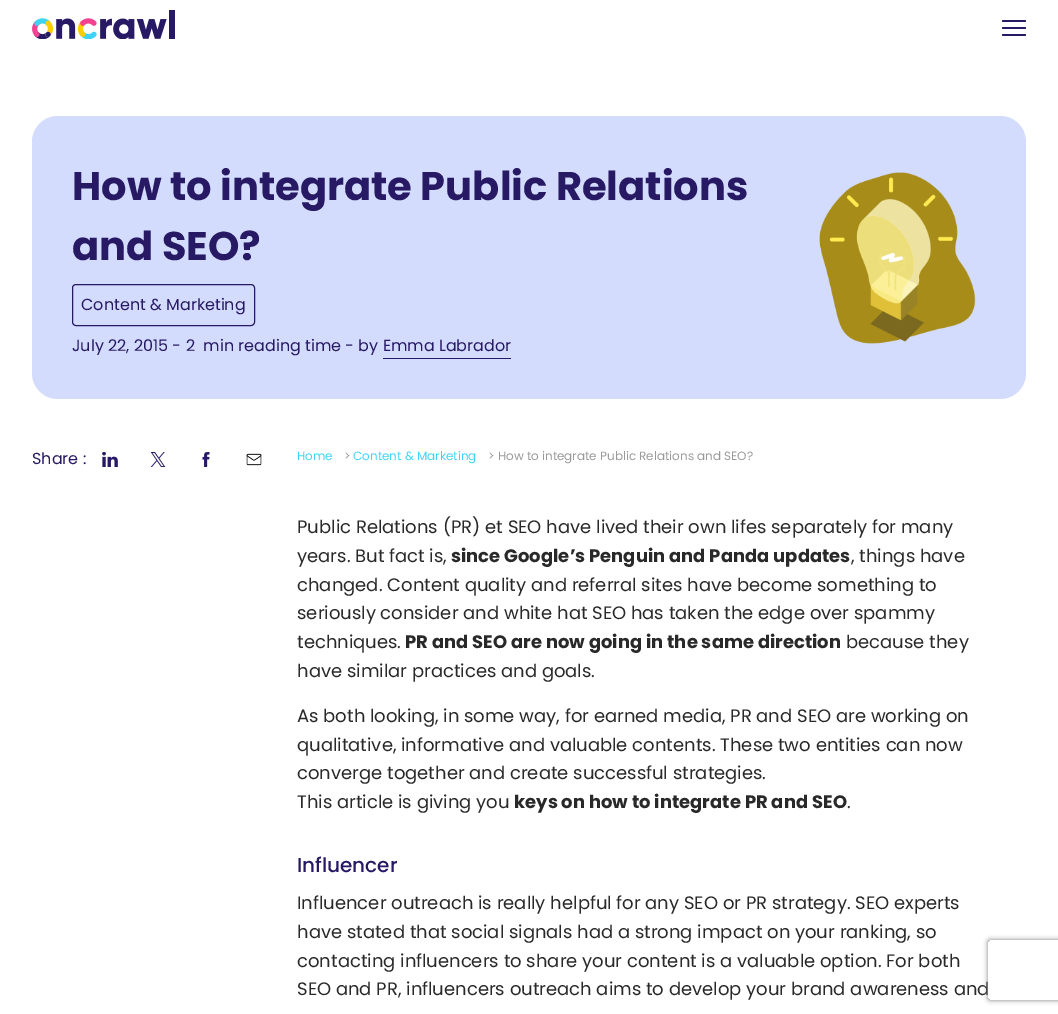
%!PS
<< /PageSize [1058 1014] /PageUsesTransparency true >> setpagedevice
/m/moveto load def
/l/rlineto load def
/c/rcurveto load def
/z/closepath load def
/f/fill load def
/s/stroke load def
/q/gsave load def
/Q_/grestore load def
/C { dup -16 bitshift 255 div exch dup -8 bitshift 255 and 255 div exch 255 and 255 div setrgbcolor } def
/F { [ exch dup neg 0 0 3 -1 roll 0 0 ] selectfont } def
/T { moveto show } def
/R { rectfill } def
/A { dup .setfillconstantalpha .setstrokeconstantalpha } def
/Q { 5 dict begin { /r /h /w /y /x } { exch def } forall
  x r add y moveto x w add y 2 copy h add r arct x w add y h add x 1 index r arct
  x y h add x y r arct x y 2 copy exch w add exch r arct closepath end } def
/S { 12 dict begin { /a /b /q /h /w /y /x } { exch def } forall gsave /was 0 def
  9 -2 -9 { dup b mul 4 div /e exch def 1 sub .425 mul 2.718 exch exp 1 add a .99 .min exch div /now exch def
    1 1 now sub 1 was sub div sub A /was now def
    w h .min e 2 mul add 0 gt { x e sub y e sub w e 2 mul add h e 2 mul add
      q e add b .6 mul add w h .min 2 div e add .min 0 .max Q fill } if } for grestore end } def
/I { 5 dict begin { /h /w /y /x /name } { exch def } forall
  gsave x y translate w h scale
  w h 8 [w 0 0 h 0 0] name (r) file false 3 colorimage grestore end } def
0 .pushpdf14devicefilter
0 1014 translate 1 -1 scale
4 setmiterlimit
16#FFFFFF C
0 0 1058 1014 R
(1.rgb) 32 10 143 29 I
16#271964 C
1002 20 24 2 1 Q f
1002 27 24 2 1 Q f
1002 34 24 2 1 Q f
16#D3DCFD C
32 116 994 283 26 Q f
/Poppins-Bold 40 F
16#271964 C
(How to integrate Public Relations) 72 200 T
(and SEO?) 72 260 T
72.5 284.5 182 41 3.5 Q s
/Poppins-Regular 16 F
(Content & Marketing) 81 310 T
(July 22, 2015 - 2  min reading time - by Emma Labrador) 72 351 T
383 358 128 1 R
(2.rgb) 819 172 157 172 I
(Share :) 32 464 T
(3.rgb) 102 452 16 15 I
(4.rgb) 150 452 16 15 I
(5.rgb) 202 452 8 15 I
(6.rgb) 246 453 16 13 I
/Poppins-Regular 12 F
16#3ED4F7 C
(Home) 297 460 T
16#999999 C
(>) 344 460 T
16#3ED4F7 C
(Content & Marketing) 353 460 T
16#999999 C
(> How to integrate Public Relations and SEO?) 488 460 T
/Poppins-Regular 18 F
16#292929 C
(Public Relations \(PR\) et SEO have lived their own lifes separately for many) 297 533 T
(years. But fact is,) 297 562 T
/Poppins-Bold 18 F
(since Google’s Penguin and Panda updates) 451 562 T
/Poppins-Regular 18 F
(, things have) 851 562 T
(changed. Content quality and referral sites have become something to) 297 591 T
(seriously consider and white hat SEO has taken the edge over spammy) 297 619 T
(techniques.) 297 648 T
/Poppins-Bold 18 F
(PR and SEO are now going in the same direction) 405 648 T
/Poppins-Regular 18 F
(because they) 846 648 T
(have similar practices and goals.) 297 677 T
(As both looking, in some way, for earned media, PR and SEO are working on) 297 722 T
(qualitative, informative and valuable contents. These two entities can now) 297 751 T
(converge together and create successful strategies.) 297 779 T
(This article is giving you) 297 808 T
/Poppins-Bold 18 F
(keys on how to integrate PR and SEO) 514 808 T
/Poppins-Regular 18 F
(.) 847 808 T
/Poppins-Medium 20 F
16#271964 C
(Influencer) 297 872 T
/Poppins-Regular 18 F
16#292929 C
(Influencer outreach is really helpful for any SEO or PR strategy. SEO experts) 297 909 T
(have stated that social signals had a strong impact on your ranking, so) 297 938 T
(contacting influencers to share your content is a valuable option. For both) 297 967 T
(SEO and PR, influencers outreach aims to develop your brand awareness and) 297 995 T
q
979 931 m 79 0 l 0 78 l -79 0 l z 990 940 m 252 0 l 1 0 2 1 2 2 c 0 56 l 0 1 -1 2 -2 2 c -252 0 l -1 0 -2 -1 -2 -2 c 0 -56 l 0 -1 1 -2 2 -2 c z eoclip newpath
16#808080 C
988 940 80 60 2 2.5 1 S
Q_
.poppdf14devicefilter showpage
